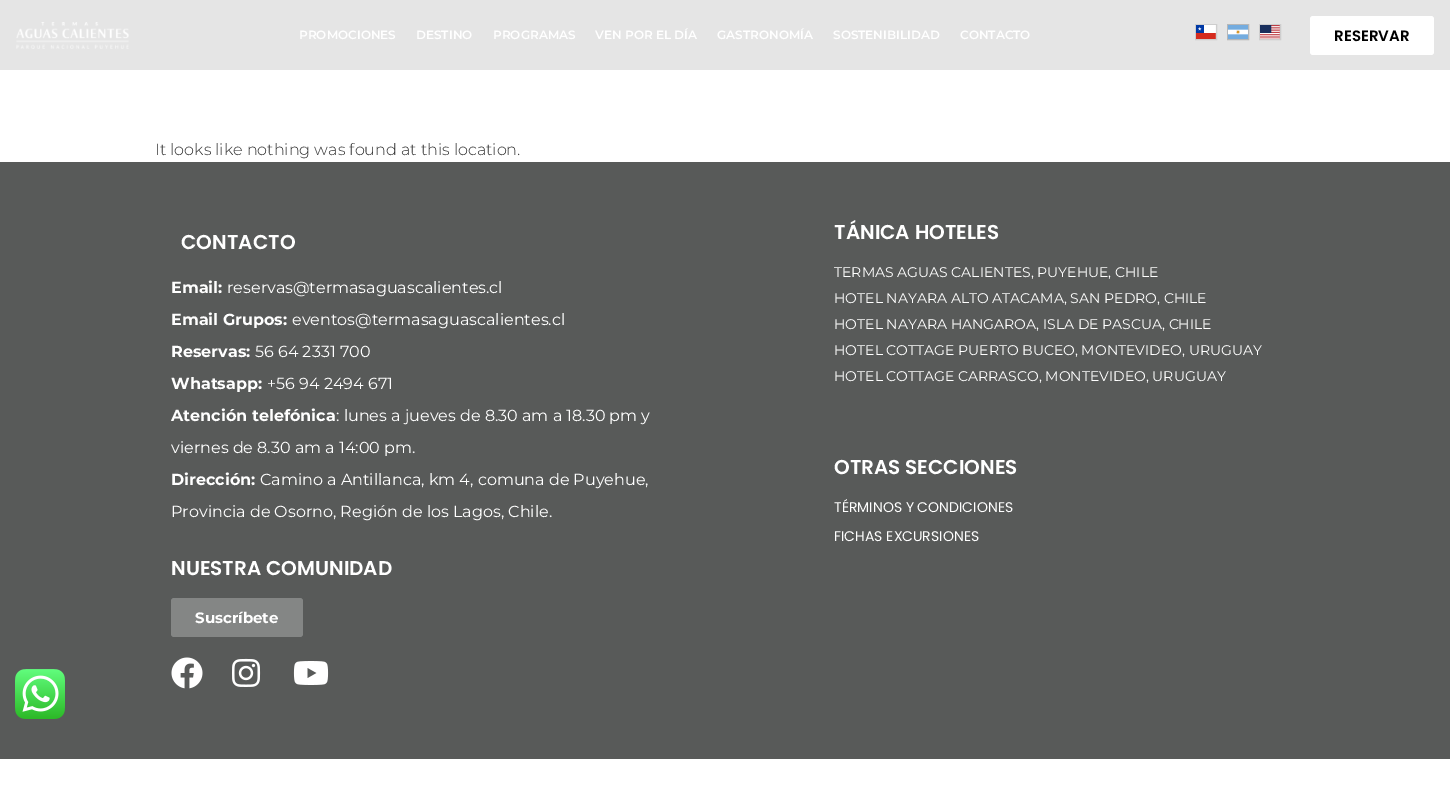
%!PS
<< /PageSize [1450 809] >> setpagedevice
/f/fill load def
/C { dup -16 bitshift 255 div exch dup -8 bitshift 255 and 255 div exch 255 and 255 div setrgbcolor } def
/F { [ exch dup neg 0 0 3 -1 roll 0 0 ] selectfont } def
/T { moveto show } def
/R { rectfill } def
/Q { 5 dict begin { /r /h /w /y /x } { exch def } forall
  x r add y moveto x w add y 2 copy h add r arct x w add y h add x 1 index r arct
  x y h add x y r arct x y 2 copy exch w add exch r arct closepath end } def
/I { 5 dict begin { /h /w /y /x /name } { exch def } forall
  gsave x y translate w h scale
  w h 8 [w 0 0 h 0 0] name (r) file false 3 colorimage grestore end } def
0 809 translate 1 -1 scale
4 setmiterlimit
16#FFFFFF C
0 0 1450 809 R
16#E5E5E5 C
0 0 1450 70 R
(1.rgb) 16 22 113 27 I
/Montserrat-SemiBold 12 F
16#FFFFFF C
(PROMOCIONES) 299 39 T
(DESTINO) 416 39 T
(PROGRAMAS) 493 39 T
(VEN POR EL DÍA) 595 39 T
(GASTRONOMÍA) 717 39 T
(SOSTENIBILIDAD) 833 39 T
(CONTACTO) 960 39 T
16#CECECE C
1195.5 24.5 21 15 rectstroke
(2.rgb) 1196 25 20 14 I
16#B7B7B7 C
1227.5 24.5 21 15 rectstroke
(3.rgb) 1228 25 20 14 I
16#CECECE C
1259.5 24.5 21 15 rectstroke
(4.rgb) 1260 25 20 14 I
16#FFFFFF C
1310 16 124 39 3 Q f
/Poppins-SemiBold 15 F
16#000000 C
(RESERVAR) 1334 41 T
/Montserrat-Light 16 F
16#333333 C
(It looks like nothing was found at this location.) 155 155 T
16#585A59 C
0 162 1450 597 R
/Poppins-SemiBold 20 F
16#FFFFFF C
(CONTACTO) 181 249 T
/Montserrat-Bold 16 F
(Email:) 171 293 T
/Montserrat-Regular 16 F
(reservas@termasaguascalientes.cl) 227 293 T
/Montserrat-Bold 16 F
(Email Grupos:) 171 325 T
/Montserrat-Regular 16 F
(eventos@termasaguascalientes.cl) 292 325 T
/Montserrat-Bold 16 F
(Reservas:) 171 357 T
/Montserrat-Regular 16 F
(56 64 2331 700) 255 357 T
/Montserrat-Bold 16 F
(Whatsapp:) 171 389 T
/Montserrat-Regular 16 F
(+56 94 2494 671) 267 389 T
/Montserrat-Bold 16 F
(Atención telefónica) 171 421 T
/Montserrat-Regular 16 F
(: lunes a jueves de 8.30 am a 18.30 pm y) 336 421 T
(viernes de 8.30 am a 14:00 pm.) 171 453 T
/Montserrat-Bold 16 F
(Dirección:) 171 485 T
/Montserrat-Regular 16 F
(Camino a Antillanca, km 4, comuna de Puyehue,) 260 485 T
(Provincia de Osorno, Región de los Lagos, Chile.) 171 517 T
/Poppins-SemiBold 20 F
(NUESTRA COMUNIDAD) 171 575 T
16#848685 C
171 598 132 39 3 Q f
/Montserrat-Bold 15 F
16#FFFFFF C
(Suscríbete) 195 623 T
(5.rgb) 171 657 32 32 I
(6.rgb) 232 658 29 29 I
(7.rgb) 293 661 36 24 I
/Poppins-SemiBold 20 F
(TÁNICA HOTELES) 834 239 T
/Montserrat-Regular 14 F
(TERMAS AGUAS CALIENTES, PUYEHUE, CHILE) 834 277 T
(HOTEL NAYARA ALTO ATACAMA, SAN PEDRO, CHILE) 834 303 T
(HOTEL NAYARA HANGAROA, ISLA DE PASCUA, CHILE) 834 329 T
(HOTEL COTTAGE PUERTO BUCEO, MONTEVIDEO, URUGUAY) 834 355 T
(HOTEL COTTAGE CARRASCO, MONTEVIDEO, URUGUAY) 834 381 T
/Poppins-SemiBold 20 F
(OTRAS SECCIONES) 834 474 T
/Poppins-Regular 14 F
(TÉRMINOS Y CONDICIONES) 834 512 T
(FICHAS EXCURSIONES) 834 541 T
(8.rgb) 15 669 50 50 I
showpage
